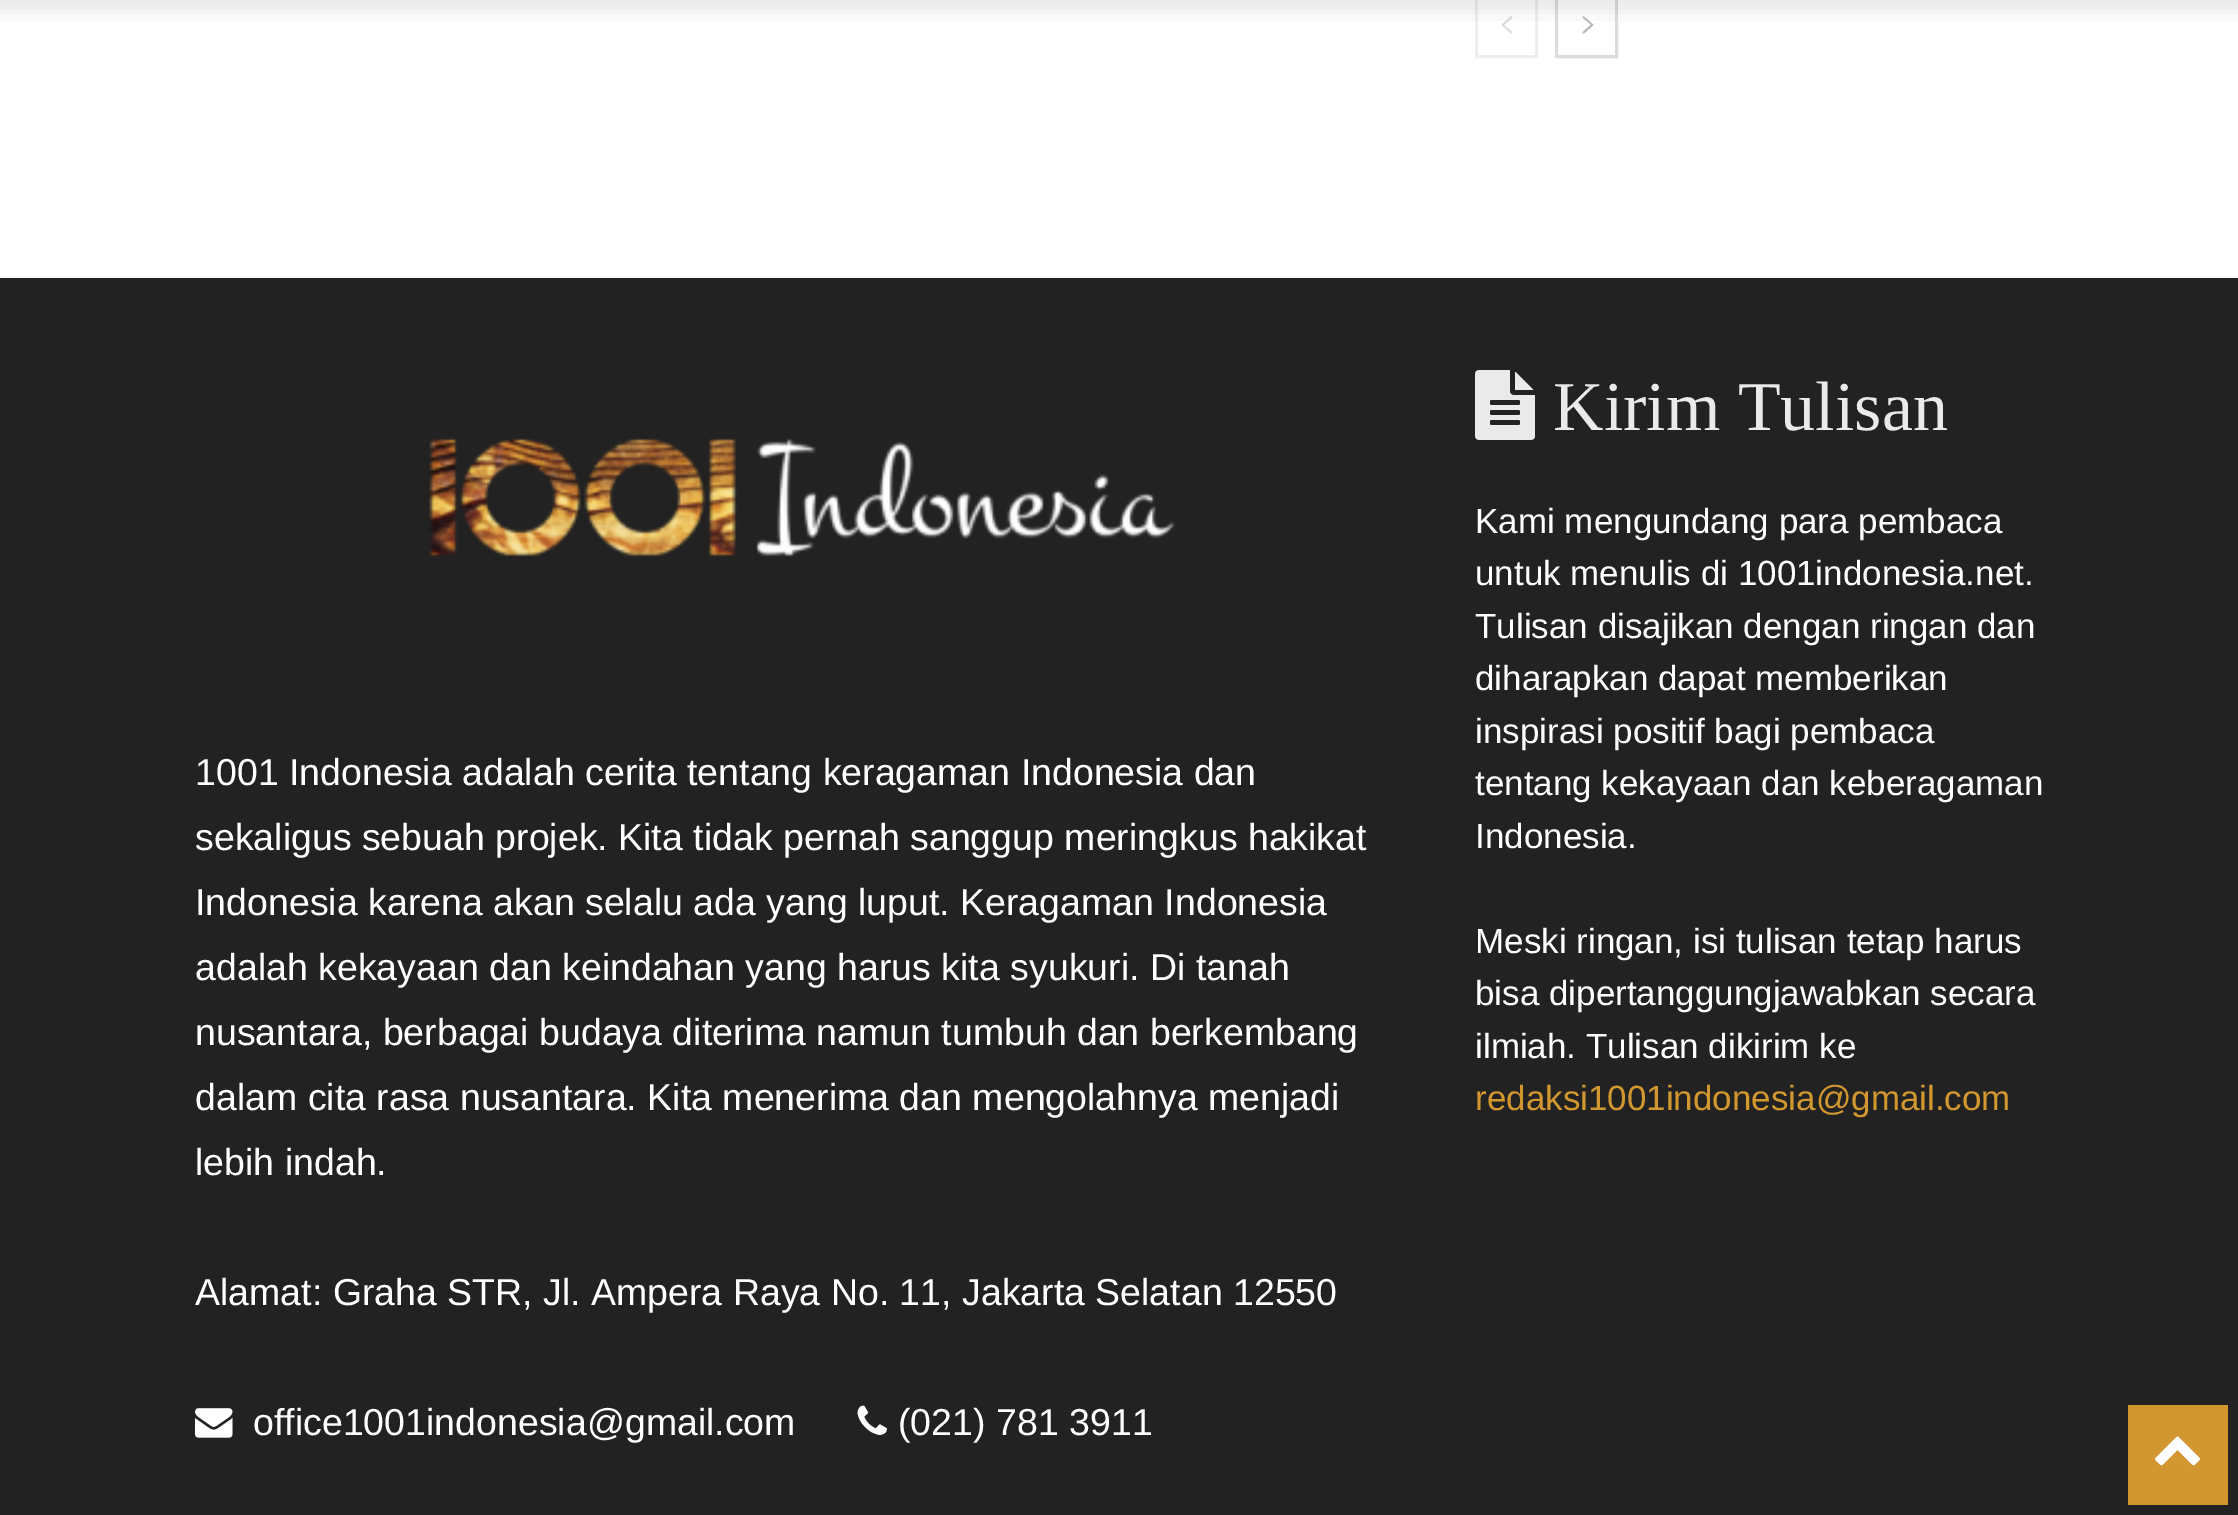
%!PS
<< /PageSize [2238 1515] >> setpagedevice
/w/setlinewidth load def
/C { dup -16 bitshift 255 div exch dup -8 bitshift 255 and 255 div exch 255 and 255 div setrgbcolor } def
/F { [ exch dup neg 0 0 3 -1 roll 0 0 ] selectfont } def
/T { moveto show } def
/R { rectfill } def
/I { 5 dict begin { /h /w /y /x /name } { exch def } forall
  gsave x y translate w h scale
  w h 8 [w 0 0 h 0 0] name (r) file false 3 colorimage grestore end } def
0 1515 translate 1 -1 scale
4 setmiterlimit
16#FFFFFF C
0 0 2238 1515 R
16#EEEEEE C
3 w
1476.5 -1.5 60 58 rectstroke
(1.rgb) 1501 16 12 18 I
16#DCDCDC C
1556.5 -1.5 60 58 rectstroke
(2.rgb) 1582 16 12 18 I
(3.rgb) 0 0 2238 21 I
16#222222 C
0 278 2238 1237 R
(4.rgb) 429 438 746 119 I
/LiberationSans-Regular 37.5 F
16#FFFFFF C
(1001 Indonesia adalah cerita tentang keragaman Indonesia dan) 195 785 T
(sekaligus sebuah projek. Kita tidak pernah sanggup meringkus hakikat) 195 850 T
(Indonesia karena akan selalu ada yang luput. Keragaman Indonesia) 195 915 T
(adalah kekayaan dan keindahan yang harus kita syukuri. Di tanah) 195 980 T
(nusantara, berbagai budaya diterima namun tumbuh dan berkembang) 195 1045 T
(dalam cita rasa nusantara. Kita menerima dan mengolahnya menjadi) 195 1110 T
(lebih indah.) 195 1175 T
(Alamat: Graha STR, Jl. Ampera Raya No. 11, Jakarta Selatan 12550) 195 1305 T
(5.rgb) 195 1408 38 30 I
(office1001indonesia@gmail.com) 253 1435 T
(6.rgb) 857 1405 30 30 I
(\(021\) 781 3911) 898 1435 T
(7.rgb) 1475 370 60 70 I
/LiberationSerif-Regular 70 F
16#EAEAEA C
(Kirim Tulisan) 1553 430 T
/LiberationSans-Regular 35 F
16#FFFFFF C
(Kami mengundang para pembaca) 1475 533 T
(untuk menulis di 1001indonesia.net.) 1475 585 T
(Tulisan disajikan dengan ringan dan) 1475 638 T
(diharapkan dapat memberikan) 1475 690 T
(inspirasi positif bagi pembaca) 1475 743 T
(tentang kekayaan dan keberagaman) 1475 795 T
(Indonesia.) 1475 848 T
(Meski ringan, isi tulisan tetap harus) 1475 953 T
(bisa dipertanggungjawabkan secara) 1475 1005 T
(ilmiah. Tulisan dikirim ke) 1475 1058 T
16#D39730 C
(redaksi1001indonesia@gmail.com) 1475 1110 T
2128 1405 100 100 R
(8.rgb) 2155 1436 45 30 I
showpage
